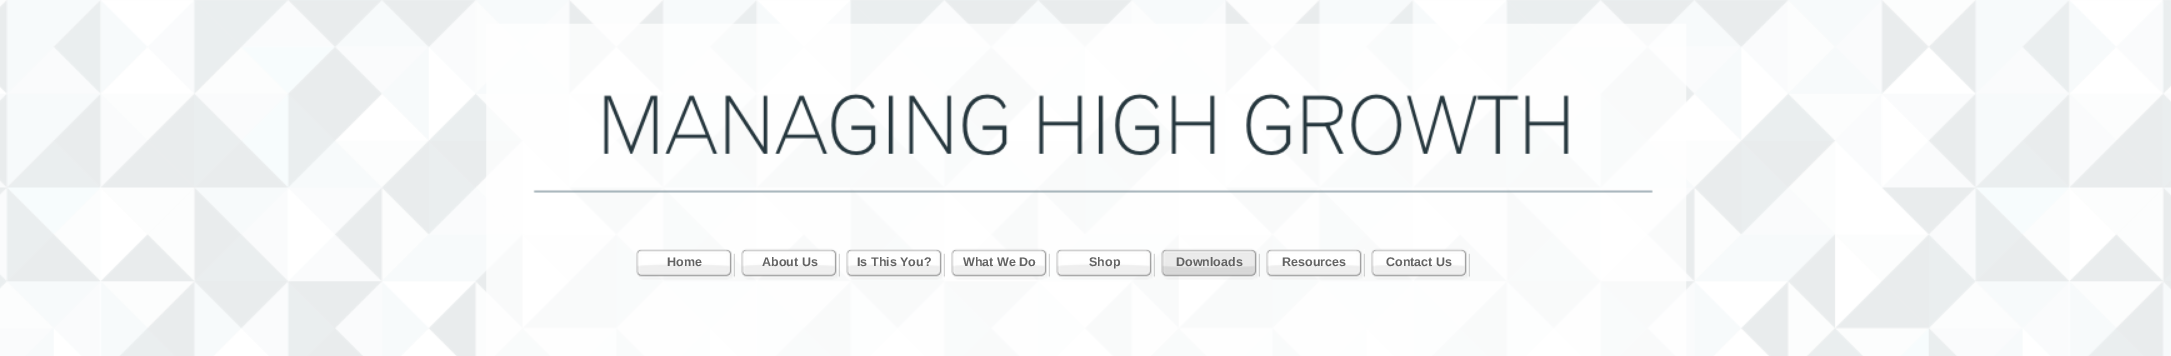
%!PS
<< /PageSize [2171 356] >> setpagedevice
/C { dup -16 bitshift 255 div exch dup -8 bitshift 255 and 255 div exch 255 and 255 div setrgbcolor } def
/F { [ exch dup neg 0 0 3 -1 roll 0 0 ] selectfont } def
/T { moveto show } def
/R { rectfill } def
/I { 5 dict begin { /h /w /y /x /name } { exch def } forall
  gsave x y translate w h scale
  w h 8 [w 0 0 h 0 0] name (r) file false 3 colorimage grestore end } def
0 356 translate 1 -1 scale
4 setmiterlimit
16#FFFFFF C
0 0 2171 356 R
(1.rgb) 0 0 2171 356 I
(2.rgb) 486 23 1201 333 I
(3.rgb) 603 93 966 63 I
(4.rgb) 636 249 99 31 I
/LiberationSans-Bold 12.5 F
16#636363 C
(Home) 667 266 T
(5.rgb) 741 248 99 32 I
(About Us) 762 266 T
(6.rgb) 846 249 99 31 I
(Is This You?) 857 266 T
(7.rgb) 951 248 99 32 I
(What We Do) 963 266 T
(8.rgb) 1056 249 99 31 I
(Shop) 1089 266 T
(9.rgb) 1161 248 99 32 I
(Downloads) 1176 266 T
(10.rgb) 1266 249 99 31 I
(Resources) 1282 266 T
(11.rgb) 1371 248 99 32 I
(Contact Us) 1386 266 T
showpage
